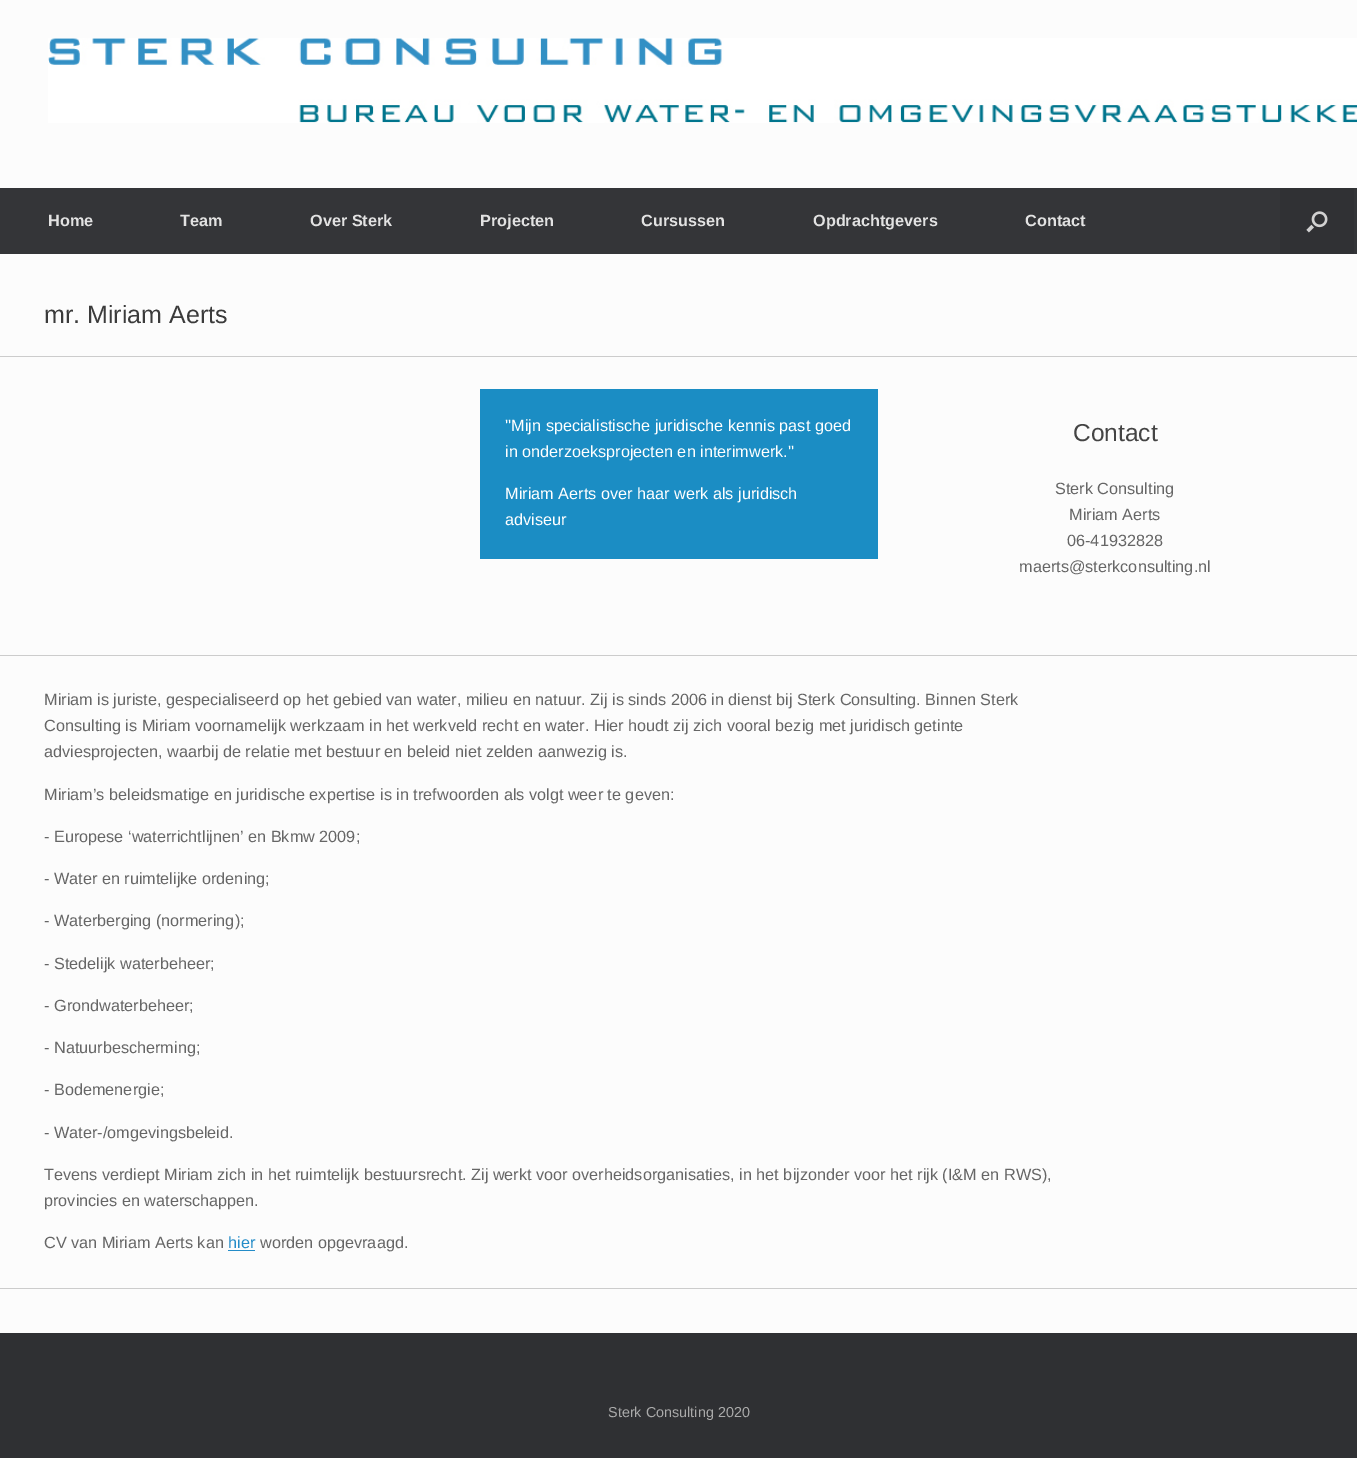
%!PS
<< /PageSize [1357 1458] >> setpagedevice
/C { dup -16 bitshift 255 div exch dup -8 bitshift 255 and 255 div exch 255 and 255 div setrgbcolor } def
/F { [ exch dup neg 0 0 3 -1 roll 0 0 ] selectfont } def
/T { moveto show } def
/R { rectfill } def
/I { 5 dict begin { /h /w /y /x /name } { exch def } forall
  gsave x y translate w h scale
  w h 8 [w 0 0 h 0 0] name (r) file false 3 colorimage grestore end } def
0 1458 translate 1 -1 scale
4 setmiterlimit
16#2F3033 C
0 0 1357 1458 R
16#FCFCFC C
0 0 1357 188 R
(1.rgb) 48 38 1309 85 I
16#343538 C
0 188 1357 66 R
/LiberationSans-Bold 16.25 F
16#E2E2E2 C
(Home) 48 226 T
(Team) 180 226 T
(Over Sterk) 310 226 T
(Projecten) 480 226 T
(Cursussen) 641 226 T
(Opdrachtgevers) 813 226 T
(Contact) 1025 226 T
16#303134 C
1280 188 74 66 R
(2.rgb) 1306 211 22 22 I
16#FCFCFC C
0 254 1357 1079 R
/LiberationSans-Regular 25 F
16#3B3B3B C
(mr. Miriam Aerts) 44 323 T
16#CCCCCC C
0 356 1357 1 R
16#1B8DC4 C
480 389 398 170 R
/LiberationSans-Regular 16.25 F
16#FFFFFF C
(''Mijn specialistische juridische kennis past goed) 505 431 T
(in onderzoeksprojecten en interimwerk.'') 505 457 T
(Miriam Aerts over haar werk als juridisch) 505 499 T
(adviseur) 505 525 T
/LiberationSans-Regular 24.5 F
16#444444 C
(Contact) 1073 441 T
/LiberationSans-Regular 16.25 F
16#666666 C
(Sterk Consulting) 1055 494 T
(Miriam Aerts) 1069 520 T
(06-41932828) 1067 546 T
(maerts@sterkconsulting.nl) 1019 572 T
16#CCCCCC C
0 655 1357 1 R
0 1288 1357 1 R
16#666666 C
(Miriam is juriste, gespecialiseerd op het gebied van water, milieu en natuur. Zij is sinds 2006 in dienst bij Sterk Consulting. Binnen Sterk) 44 705 T
(Consulting is Miriam voornamelijk werkzaam in het werkveld recht en water. Hier houdt zij zich vooral bezig met juridisch getinte) 44 731 T
(adviesprojecten, waarbij de relatie met bestuur en beleid niet zelden aanwezig is.) 44 757 T
(Miriam’s beleidsmatige en juridische expertise is in trefwoorden als volgt weer te geven:) 44 800 T
(- Europese ‘waterrichtlijnen’ en Bkmw 2009;) 44 842 T
(- Water en ruimtelijke ordening;) 44 884 T
(- Waterberging \(normering\);) 44 926 T
(- Stedelijk waterbeheer;) 44 969 T
(- Grondwaterbeheer;) 44 1011 T
(- Natuurbescherming;) 44 1053 T
(- Bodemenergie;) 44 1095 T
(- Water-/omgevingsbeleid.) 44 1138 T
(Tevens verdiept Miriam zich in het ruimtelijk bestuursrecht. Zij werkt voor overheidsorganisaties, in het bijzonder voor het rijk \(I&M en RWS\),) 44 1180 T
(provincies en waterschappen.) 44 1206 T
(CV van Miriam Aerts kan) 44 1248 T
16#248CC8 C
(hier) 228 1248 T
228 1250 27 1 R
16#666666 C
(worden opgevraagd.) 260 1248 T
/LiberationSans-Regular 14.4 F
16#AAAAAA C
(Sterk Consulting 2020) 608 1417 T
showpage
